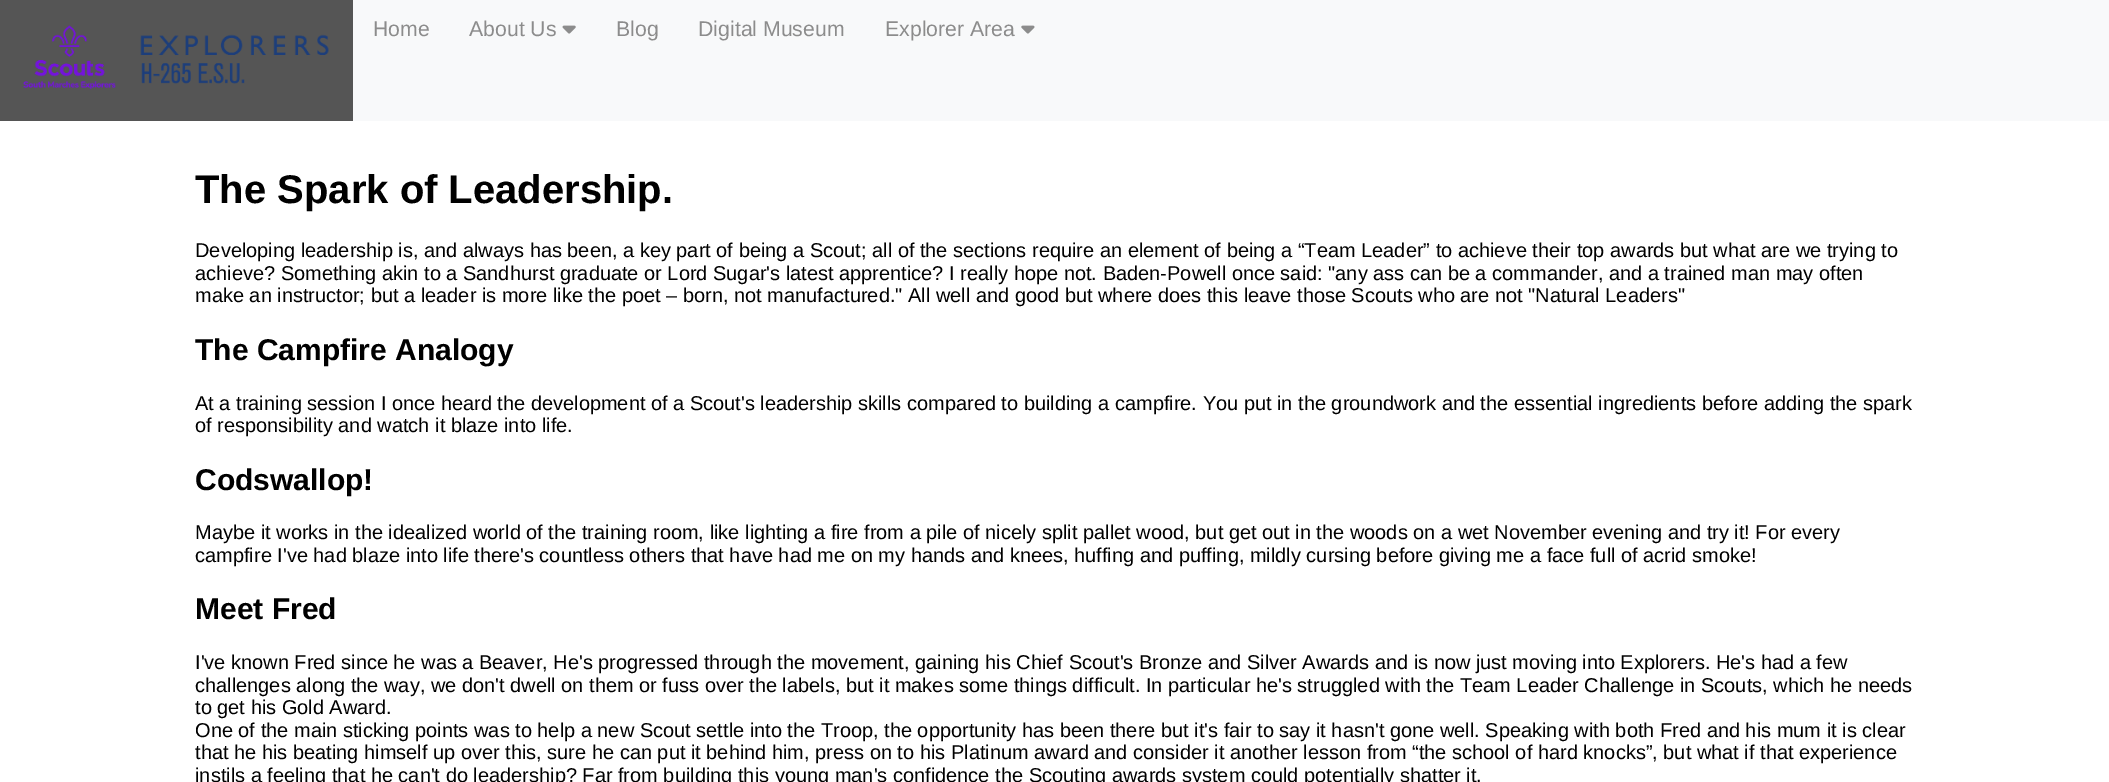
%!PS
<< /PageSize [2109 782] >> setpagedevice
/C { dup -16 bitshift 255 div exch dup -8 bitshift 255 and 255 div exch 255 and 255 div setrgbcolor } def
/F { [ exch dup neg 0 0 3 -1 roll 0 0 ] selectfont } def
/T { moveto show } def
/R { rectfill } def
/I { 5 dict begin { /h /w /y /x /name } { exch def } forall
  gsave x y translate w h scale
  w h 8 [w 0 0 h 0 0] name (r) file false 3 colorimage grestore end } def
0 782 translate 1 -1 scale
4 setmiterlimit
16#FFFFFF C
0 0 2109 782 R
16#F8F9FA C
353 0 1756 121 R
16#555555 C
0 0 353 121 R
(1.rgb) 23 25 306 65 I
/LiberationSans-Regular 21.25 F
16#8C8C8C C
(Home) 373 36 T
(About Us) 469 36 T
(2.rgb) 562 25 14 9 I
(Blog) 616 36 T
(Digital Museum) 698 36 T
(Explorer Area) 885 36 T
(3.rgb) 1021 25 14 9 I
/LiberationSans-Bold 40 F
16#000000 C
(The Spark of Leadership.) 195 203 T
/LiberationSans-Regular 20 F
(Developing leadership is, and always has been, a key part of being a Scout; all of the sections require an element of being a “Team Leader” to achieve their top awards but what are we trying to) 195 257 T
(achieve? Something akin to a Sandhurst graduate or Lord Sugar's latest apprentice? I really hope not. Baden-Powell once said: "any ass can be a commander, and a trained man may often) 195 280 T
(make an instructor; but a leader is more like the poet – born, not manufactured." All well and good but where does this leave those Scouts who are not "Natural Leaders") 195 302 T
/LiberationSans-Bold 30 F
(The Campfire Analogy) 195 360 T
/LiberationSans-Regular 20 F
(At a training session I once heard the development of a Scout's leadership skills compared to building a campfire. You put in the groundwork and the essential ingredients before adding the spark) 195 410 T
(of responsibility and watch it blaze into life.) 195 432 T
/LiberationSans-Bold 30 F
(Codswallop!) 195 490 T
/LiberationSans-Regular 20 F
(Maybe it works in the idealized world of the training room, like lighting a fire from a pile of nicely split pallet wood, but get out in the woods on a wet November evening and try it! For every) 195 539 T
(campfire I've had blaze into life there's countless others that have had me on my hands and knees, huffing and puffing, mildly cursing before giving me a face full of acrid smoke!) 195 562 T
/LiberationSans-Bold 30 F
(Meet Fred) 195 619 T
/LiberationSans-Regular 20 F
(I've known Fred since he was a Beaver, He's progressed through the movement, gaining his Chief Scout's Bronze and Silver Awards and is now just moving into Explorers. He's had a few) 195 669 T
(challenges along the way, we don't dwell on them or fuss over the labels, but it makes some things difficult. In particular he's struggled with the Team Leader Challenge in Scouts, which he needs) 195 692 T
(to get his Gold Award.) 195 714 T
(One of the main sticking points was to help a new Scout settle into the Troop, the opportunity has been there but it's fair to say it hasn't gone well. Speaking with both Fred and his mum it is clear) 195 737 T
(that he his beating himself up over this, sure he can put it behind him, press on to his Platinum award and consider it another lesson from “the school of hard knocks”, but what if that experience) 195 759 T
(instils a feeling that he can't do leadership? Far from building this young man's confidence the Scouting awards system could potentially shatter it.) 195 782 T
showpage
